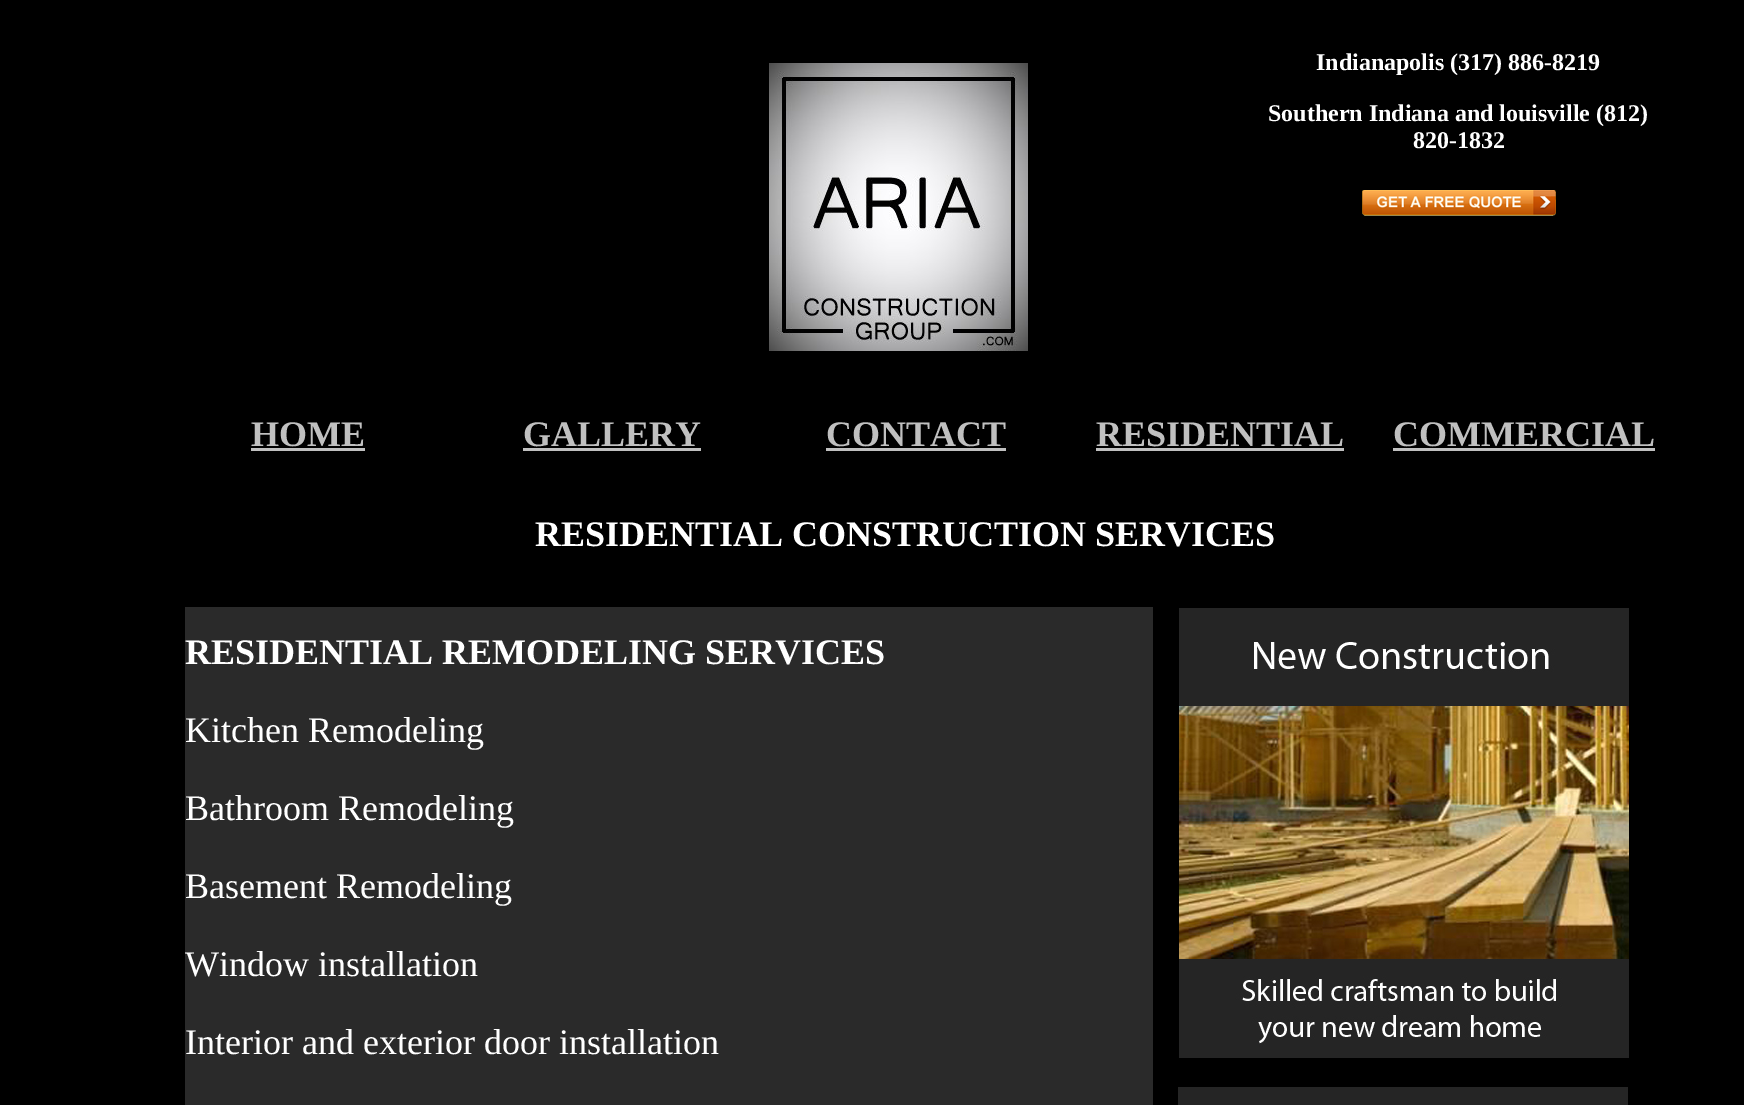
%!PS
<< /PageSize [1744 1105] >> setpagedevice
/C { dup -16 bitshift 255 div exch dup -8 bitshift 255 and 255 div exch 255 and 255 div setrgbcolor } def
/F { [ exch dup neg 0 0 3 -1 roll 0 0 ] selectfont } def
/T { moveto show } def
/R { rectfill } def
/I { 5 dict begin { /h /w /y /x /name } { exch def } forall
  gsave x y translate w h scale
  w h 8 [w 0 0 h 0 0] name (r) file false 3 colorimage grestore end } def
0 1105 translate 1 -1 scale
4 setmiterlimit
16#000000 C
0 0 1744 1105 R
(1.rgb) 769 63 259 288 I
/LiberationSerif-Bold 24 F
16#FFFFFF C
(Indianapolis \(317\) 886-8219) 1316 70 T
(Southern Indiana and louisville \(812\)) 1268 121 T
(820-1832) 1413 148 T
(2.rgb) 1362 190 194 26 I
/LiberationSerif-Bold 36 F
16#C0C0C0 C
(HOME) 251 446 T
251 448 114 3 R
(GALLERY) 523 446 T
523 448 178 3 R
(CONTACT) 826 446 T
826 448 180 3 R
(RESIDENTIAL) 1096 446 T
1096 448 248 3 R
(COMMERCIAL) 1393 446 T
1393 448 262 3 R
16#FFFFFF C
(RESIDENTIAL CONSTRUCTION SERVICES) 535 546 T
16#2A2A2A C
185 607 968 498 R
16#FFFFFF C
(RESIDENTIAL REMODELING SERVICES) 185 664 T
/LiberationSerif-Regular 36 F
(Kitchen Remodeling) 185 742 T
(Bathroom Remodeling) 185 820 T
(Basement Remodeling) 185 898 T
(Window installation) 185 976 T
(Interior and exterior door installation) 185 1054 T
(3.rgb) 1179 608 450 450 I
16#252525 C
1178 1087 450 18 R
showpage
